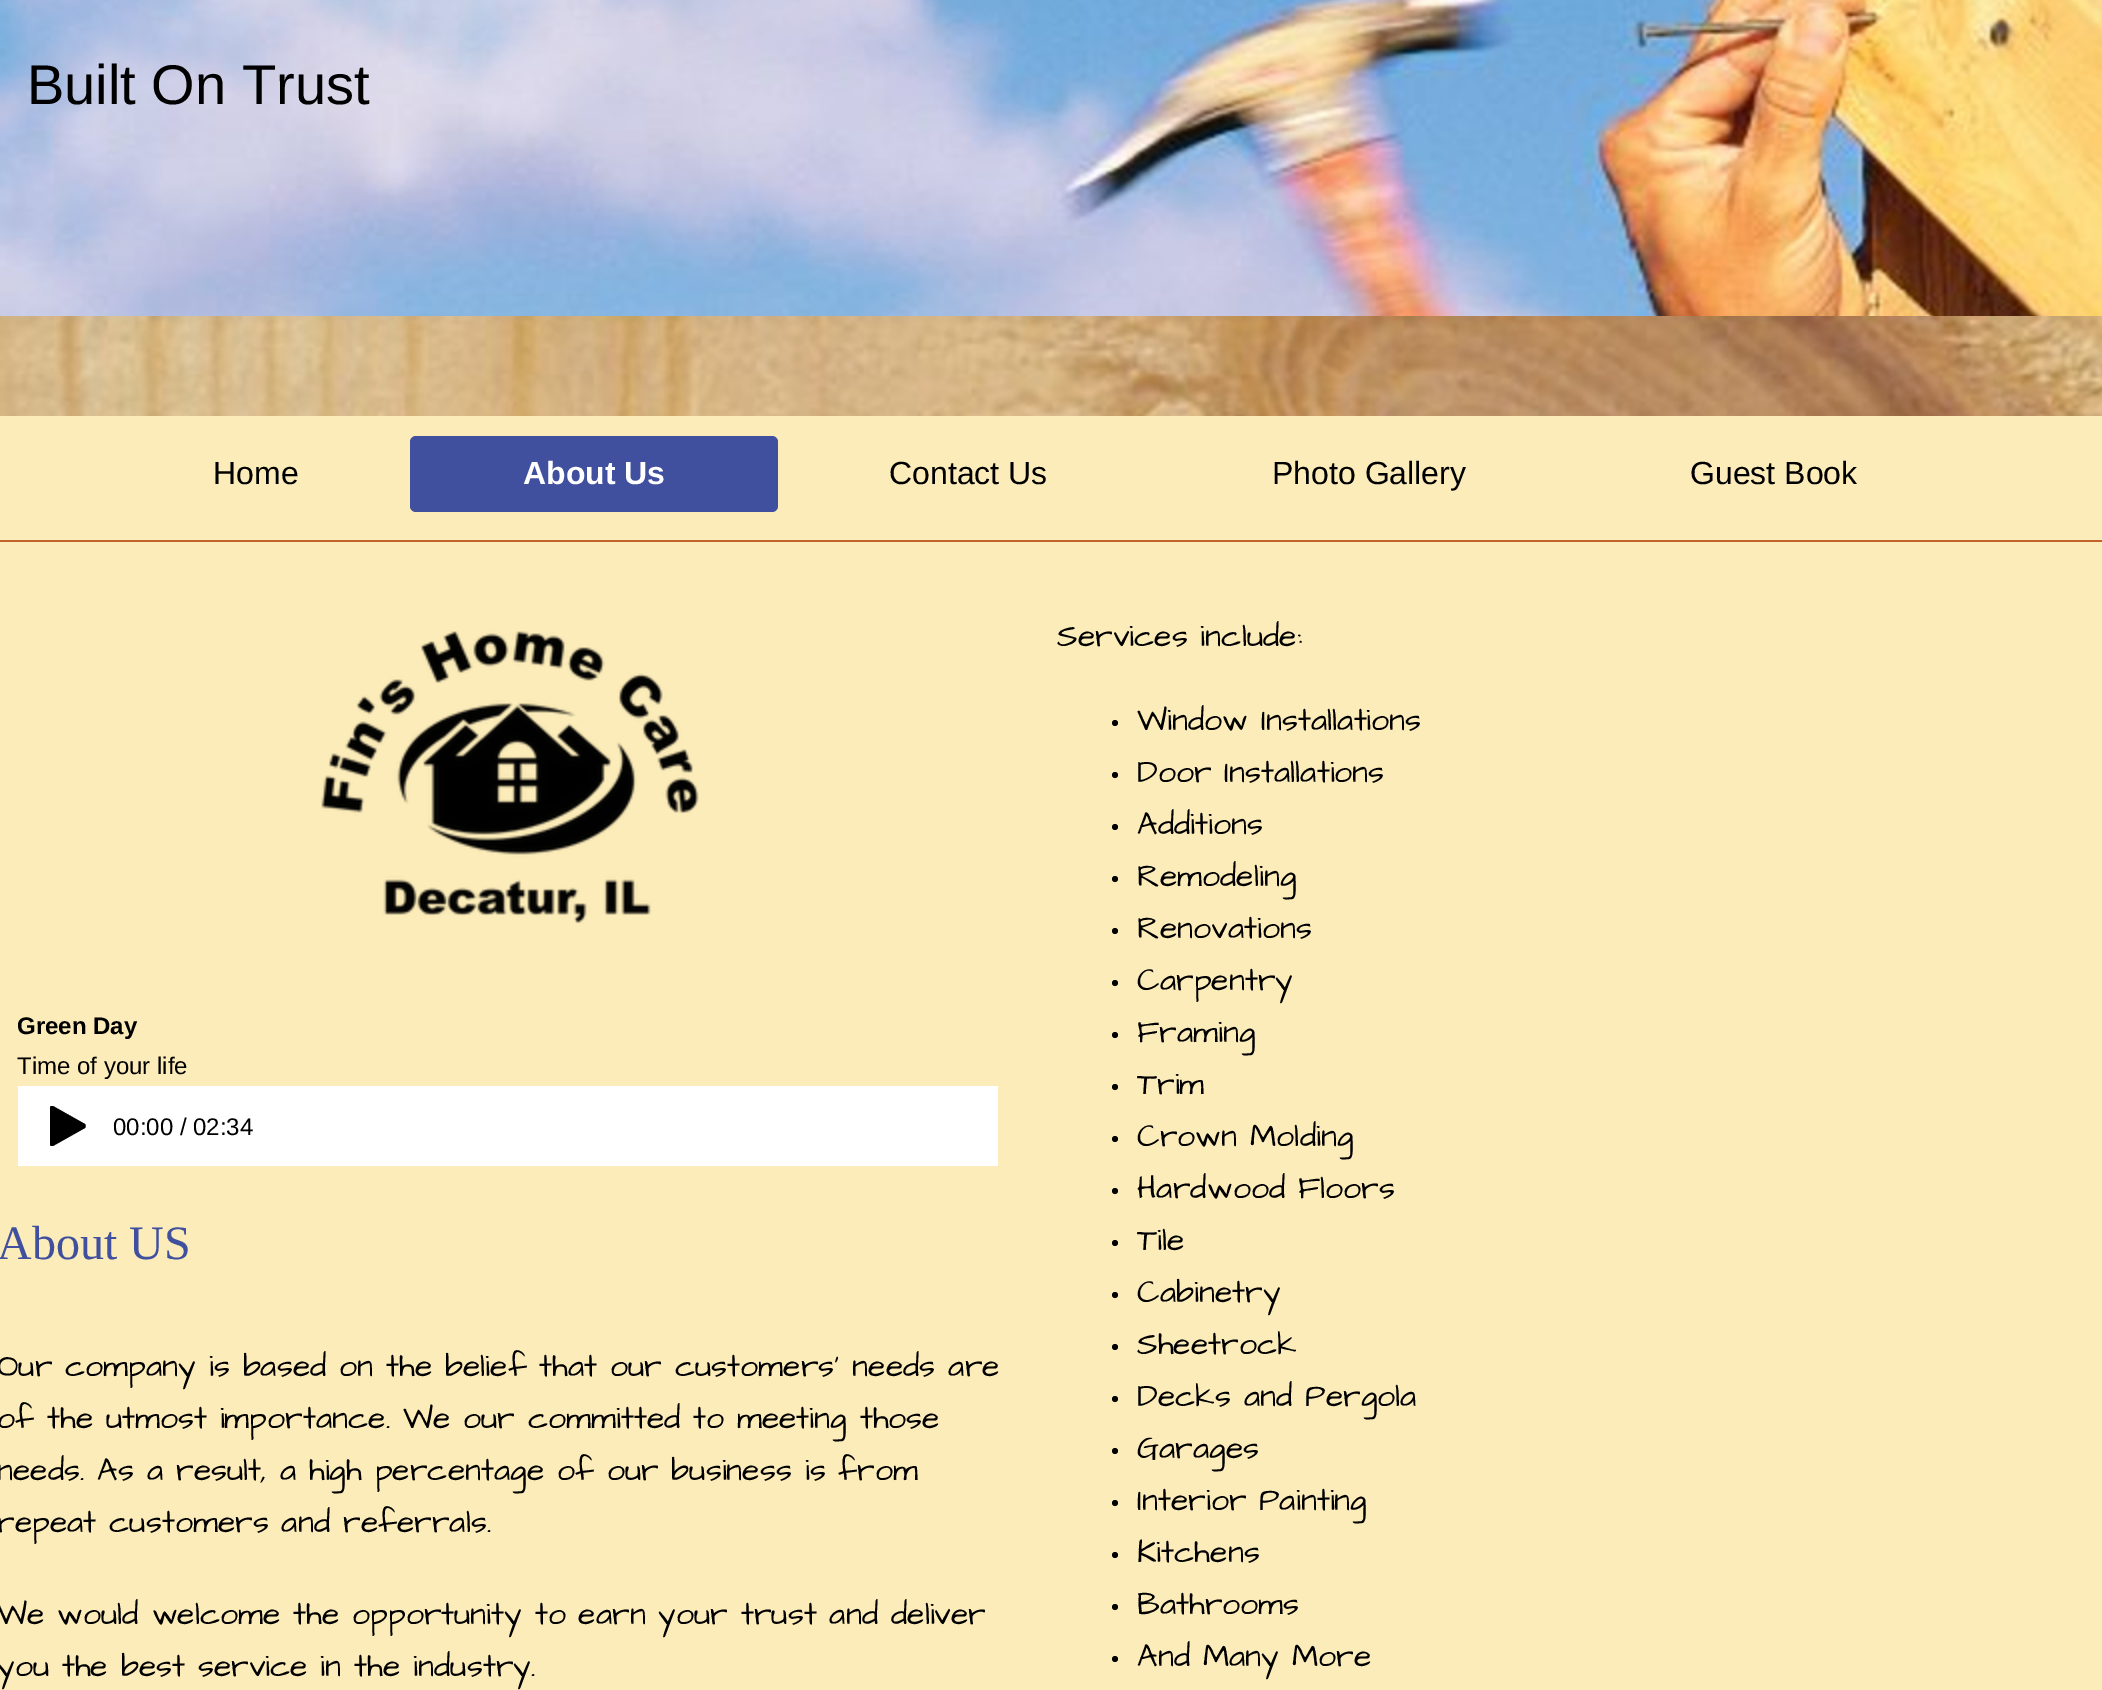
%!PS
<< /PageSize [2102 1690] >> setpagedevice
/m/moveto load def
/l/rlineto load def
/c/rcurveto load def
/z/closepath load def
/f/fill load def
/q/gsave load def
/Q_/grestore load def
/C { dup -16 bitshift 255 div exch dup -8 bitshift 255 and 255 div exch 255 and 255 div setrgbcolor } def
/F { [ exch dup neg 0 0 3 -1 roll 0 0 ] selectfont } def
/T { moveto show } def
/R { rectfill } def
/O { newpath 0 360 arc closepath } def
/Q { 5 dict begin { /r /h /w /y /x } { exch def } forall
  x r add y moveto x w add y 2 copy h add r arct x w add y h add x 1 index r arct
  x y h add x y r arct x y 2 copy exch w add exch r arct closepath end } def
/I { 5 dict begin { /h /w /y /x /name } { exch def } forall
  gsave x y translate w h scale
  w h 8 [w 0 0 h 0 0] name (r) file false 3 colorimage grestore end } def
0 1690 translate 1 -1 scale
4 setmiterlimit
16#C26329 C
0 0 2102 1690 R
(1.rgb) 0 0 2102 316 I
/LiberationSans-Regular 56 F
16#000000 C
(Built On Trust) 27 104 T
(2.rgb) 0 316 2102 100 I
16#FCECB9 C
0 416 2102 124 R
/LiberationSans-Regular 32 F
16#000000 C
(Home) 213 484 T
16#40509E C
410 436 368 76 6 Q f
/LiberationSans-Bold 32 F
16#FFFFFF C
(About Us) 523 484 T
/LiberationSans-Regular 32 F
16#000000 C
(Contact Us) 889 484 T
(Photo Gallery) 1272 484 T
(Guest Book) 1690 484 T
16#FCECB9 C
0 542 2102 1148 R
(3.rgb) 321 631 378 293 I
/LiberationSans-Bold 24 F
16#000000 C
(Green Day) 17 1034 T
/LiberationSans-Regular 24 F
(Time of your life) 17 1074 T
16#FFFFFF C
18 1086 980 80 R
q
50 1106 36 40 rectclip
16#000000 C
85 1124 m 1 1 1 3 0 4 c -32 18 l -1 1 -3 0 -3 -2 c 0 -36 l 0 -2 2 -3 3 -2 c z f
Q_
16#000000 C
(00:00 / 02:34) 113 1135 T
/LiberationSerif-Regular 48 F
16#40509E C
(About US) -3 1259 T
/ArchitectsDaughter-Regular 32 F
16#000000 C
(Our company is based on the belief that our customers' needs are) -3 1376 T
(of the utmost importance. We our committed to meeting those) -3 1428 T
(needs. As a result, a high percentage of our business is from) -3 1480 T
(repeat customers and referrals.) -3 1532 T
(We would welcome the opportunity to earn your trust and deliver) -3 1624 T
(you the best service in the industry.) -3 1676 T
(Services include:) 1057 646 T
1115 723 3 O f
(Window Installations) 1137 730 T
1115 775 3 O f
(Door Installations) 1137 782 T
1115 827 3 O f
(Additions) 1137 834 T
1115 879 3 O f
(Remodeling) 1137 886 T
1115 931 3 O f
(Renovations) 1137 938 T
1115 983 3 O f
(Carpentry) 1137 990 T
1115 1035 3 O f
(Framing) 1137 1042 T
1115 1087 3 O f
(Trim) 1137 1094 T
1115 1139 3 O f
(Crown Molding) 1137 1146 T
1115 1191 3 O f
(Hardwood Floors) 1137 1198 T
1115 1243 3 O f
(Tile) 1137 1250 T
1115 1295 3 O f
(Cabinetry) 1137 1302 T
1115 1347 3 O f
(Sheetrock) 1137 1354 T
1115 1399 3 O f
(Decks and Pergola) 1137 1406 T
1115 1451 3 O f
(Garages) 1137 1458 T
1115 1503 3 O f
(Interior Painting) 1137 1510 T
1115 1555 3 O f
(Kitchens) 1137 1562 T
1115 1607 3 O f
(Bathrooms) 1137 1614 T
1115 1659 3 O f
(And Many More) 1137 1666 T
showpage
